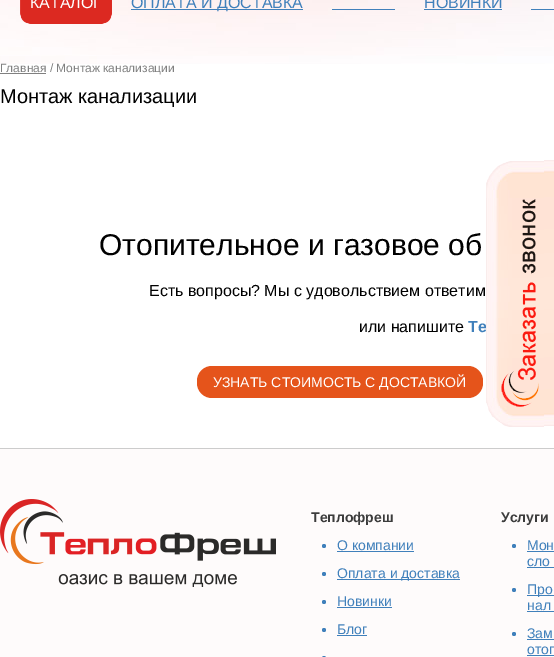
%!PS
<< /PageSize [554 657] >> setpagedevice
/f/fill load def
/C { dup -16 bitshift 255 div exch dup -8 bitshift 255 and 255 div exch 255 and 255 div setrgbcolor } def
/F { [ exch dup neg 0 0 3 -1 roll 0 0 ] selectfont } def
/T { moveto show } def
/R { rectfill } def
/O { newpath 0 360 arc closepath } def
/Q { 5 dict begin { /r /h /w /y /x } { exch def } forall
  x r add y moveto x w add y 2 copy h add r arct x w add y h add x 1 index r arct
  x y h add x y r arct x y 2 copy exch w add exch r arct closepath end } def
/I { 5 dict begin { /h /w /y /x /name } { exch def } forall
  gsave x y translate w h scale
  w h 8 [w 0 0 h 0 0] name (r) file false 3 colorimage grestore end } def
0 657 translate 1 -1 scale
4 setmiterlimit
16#FFFFFF C
0 0 554 657 R
(1.rgb) 0 56 554 8 I
(2.rgb) 0 0 554 56 I
(3.rgb) 20 0 82 24 I
(4.rgb) 102 0 10 24 I
/LiberationSans-Regular 16 F
(КАТАЛОГ) 30 8 T
16#4080BB C
131 9 172 1 R
(ОПЛАТА И ДОСТАВКА) 131 8 T
(НОВИНКИ) 424 8 T
424 9 78 1 R
332 9 63 1 R
531 9 23 1 R
16#808080 C
0 73 46 1 R
/LiberationSans-Regular 12 F
(Главная / Монтаж канализации) 0 72 T
/LiberationSans-Regular 20 F
16#000000 C
(Монтаж канализации) 0 103 T
/LiberationSans-Regular 30 F
(Отопительное и газовое об) 99 255 T
/LiberationSans-Regular 16 F
(Есть вопросы? Мы с удовольствием ответим) 149 296 T
(или напишите) 359 332 T
/LiberationSans-Bold 16 F
16#4080BB C
(Te) 468 332 T
16#E5541B C
197 366 286 32 15 Q f
/LiberationSans-Regular 14 F
16#FFFFFF C
(УЗНАТЬ СТОИМОСТЬ С ДОСТАВКОЙ) 213 387 T
(5.rgb) 486 161 58 266 I
(6.rgb) 544 160 10 266 I
16#FEFBFB C
0 449 554 208 R
16#CCCCCC C
0 448 554 1 R
(7.rgb) 0 499 276 88 I
/LiberationSans-Bold 14 F
16#3C3C3C C
(Теплофреш) 311 522 T
16#4080BB C
324 546 2 O f
/LiberationSans-Regular 14 F
(О компании) 337 550 T
337 551 77 1 R
324 574 2 O f
337 579 123 1 R
(Оплата и доставка) 337 578 T
324 602 2 O f
(Новинки) 337 606 T
337 607 55 1 R
324 630 2 O f
(Блог) 337 634 T
337 635 30 1 R
322 656 4 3 2 Q f
/LiberationSans-Bold 14 F
16#3C3C3C C
(Услуги) 501 522 T
16#4080BB C
514 546 2 O f
/LiberationSans-Regular 14 F
(Мон) 527 550 T
527 551 27 1 R
(сло) 527 566 T
527 567 27 1 R
514 590 2 O f
527 595 27 1 R
(Про) 527 594 T
(нал) 527 610 T
527 611 27 1 R
514 634 2 O f
(Зам) 527 638 T
527 639 27 1 R
(отоп) 527 654 T
527 655 27 1 R
showpage
